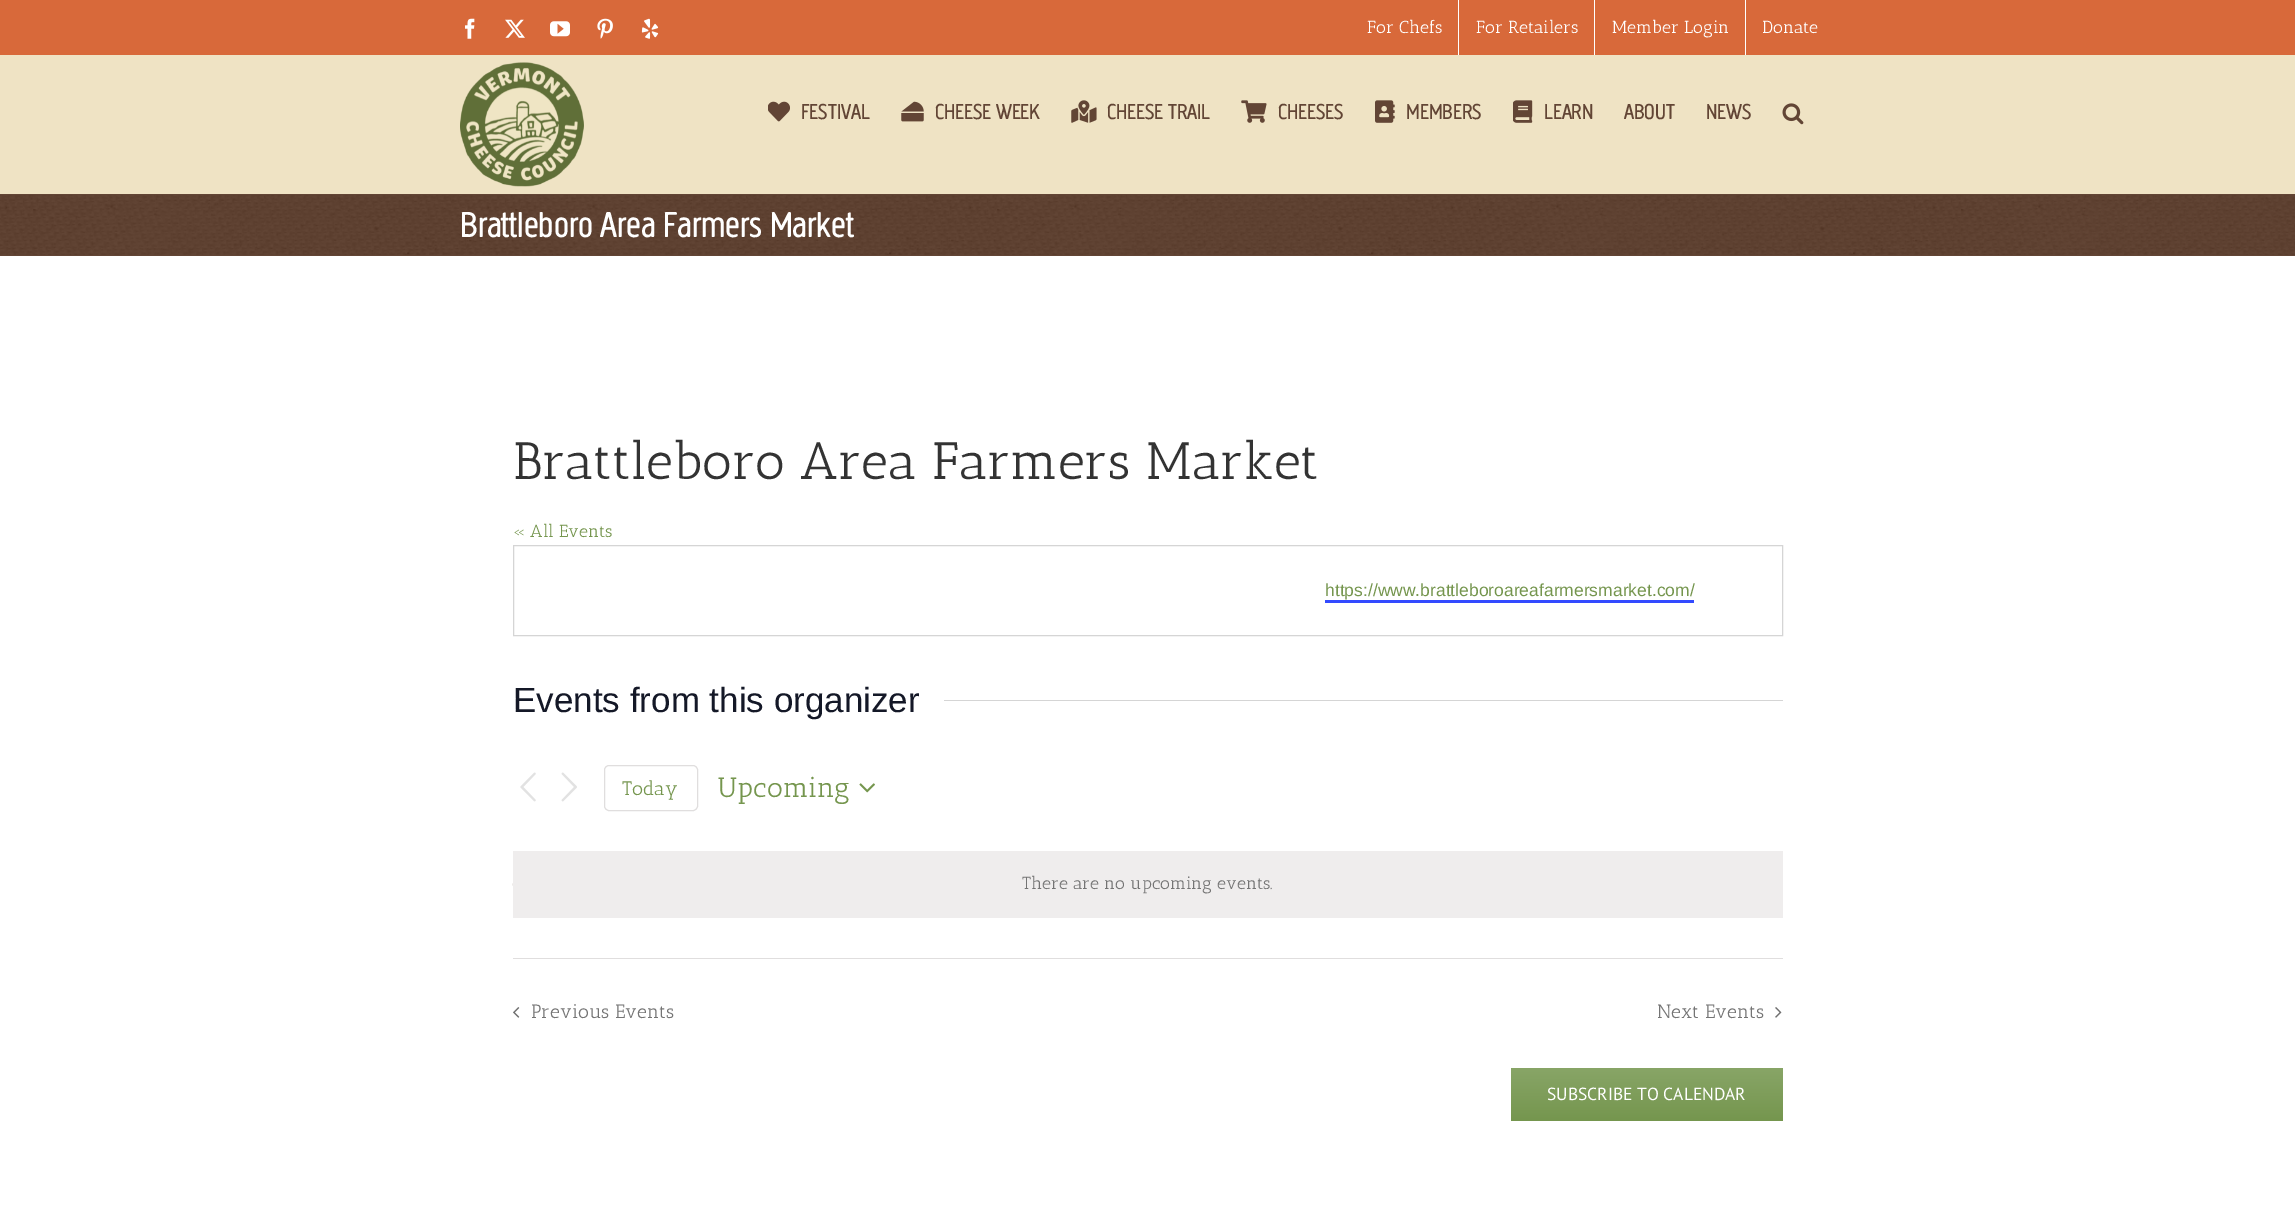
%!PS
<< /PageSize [2295 1227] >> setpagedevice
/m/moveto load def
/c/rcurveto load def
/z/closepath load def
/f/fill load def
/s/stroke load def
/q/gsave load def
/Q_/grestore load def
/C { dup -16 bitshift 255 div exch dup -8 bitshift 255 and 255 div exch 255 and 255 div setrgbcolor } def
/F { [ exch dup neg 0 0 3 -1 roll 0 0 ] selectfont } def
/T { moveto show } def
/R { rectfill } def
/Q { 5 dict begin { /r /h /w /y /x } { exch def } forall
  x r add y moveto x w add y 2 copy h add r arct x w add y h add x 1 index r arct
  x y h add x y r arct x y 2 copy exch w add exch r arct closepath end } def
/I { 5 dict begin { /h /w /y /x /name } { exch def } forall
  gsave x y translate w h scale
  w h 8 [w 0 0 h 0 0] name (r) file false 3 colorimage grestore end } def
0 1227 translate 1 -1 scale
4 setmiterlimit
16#FFFFFF C
0 0 2295 1227 R
16#D8693A C
0 0 2295 55 R
16#EFE3C4 C
0 55 2295 139 R
(1.rgb) 465 18 10 21 I
(2.rgb) 505 19 20 19 I
(3.rgb) 550 21 20 16 I
(4.rgb) 597 18 16 21 I
(5.rgb) 641 18 18 21 I
/AnticSlab-Regular 17.5 F
16#FFFFFF C
(For Chefs) 1367 33 T
1458 0 1 55 R
(For Retailers) 1476 33 T
1594 0 1 55 R
(Member Login) 1612 33 T
1745 0 1 55 R
(Donate) 1762 33 T
(6.rgb) 460 62 124 125 I
(7.rgb) 768 101 22 21 I
/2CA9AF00-Regular 22.5 F
16#624535 C
(FESTIVAL) 801 119 T
(8.rgb) 901 101 23 21 I
(CHEESE WEEK) 935 119 T
(9.rgb) 1071 100 26 23 I
(CHEESE TRAIL) 1107 119 T
(10.rgb) 1241 100 26 23 I
(CHEESES) 1278 119 T
(11.rgb) 1375 100 20 23 I
(MEMBERS) 1406 119 T
(12.rgb) 1513 100 20 23 I
(LEARN) 1544 119 T
(ABOUT) 1624 119 T
(NEWS) 1706 119 T
(13.rgb) 1782 103 22 22 I
(14.rgb) 0 195 2295 60 I
0 194 2295 1 R
0 255 2295 1 R
/2CA9AF00-Regular 37.5 F
16#FFFFFF C
(Brattleboro Area Farmers Market) 460 237 T
/AnticSlab-Regular 52.5 F
16#333333 C
(Brattleboro Area Farmers Market) 513 479 T
/AnticSlab-Regular 17.5 F
16#75964E C
(« All Events) 513 537 T
16#D5D5D5 C
513.5 545.5 1269 90 rectstroke
/LiberationSans-Regular 17.5 F
16#75964E C
(https://www.brattleboroareafarmersmarket.com/) 1325 596 T
16#334AFF C
1325 600 369 3 R
/LiberationSans-Regular 35 F
16#141827 C
(Events from this organizer) 513 712 T
16#D5D5D5 C
944 700 839 1 R
(15.rgb) 520 772 16 30 I
(16.rgb) 561 772 16 30 I
16#E0DEDE C
604.5 765.5 93 45 4.5 Q s
/AnticSlab-Regular 19.5 F
16#75964E C
(Today) 622 795 T
/AnticSlab-Regular 28 F
(Upcoming) 717 797 T
(17.rgb) 859 783 16 10 I
16#E0DAD7 C
1147.5 851.5 m 350.5 0 635 15 635 33 c 0 18 -284.5 33 -635 33 c -350.5 0 -635 -15 -635 -33 c 0 -18 284.5 -33 635 -33 c z f
16#EFEDED C
513 851 1270 67 R
/AnticSlab-Regular 17.5 F
16#747474 C
(There are no upcoming events.) 1022 889 T
16#E0DEDE C
513 958 1270 1 R
(18.rgb) 513 1007 7 11 I
/AnticSlab-Regular 19.25 F
16#747474 C
(Previous Events) 531 1018 T
(Next Events) 1657 1018 T
(19.rgb) 1775 1007 7 11 I
q 1511 1068 272 53 2.5 Q clip newpath
<< /ShadingType 2 /ColorSpace /DeviceRGB /Coords [1647 1068 1647 1121] /Extend [true true] /Function << /FunctionType 2 /Domain [0 1] /C0 [.533 .647 .404] /C1 [.459 .588 .306] /N 1 >> >> shfill Q_
/PTSans-Regular 17.5 F
16#FFFFFF C
(SUBSCRIBE TO CALENDAR) 1547 1100 T
showpage
